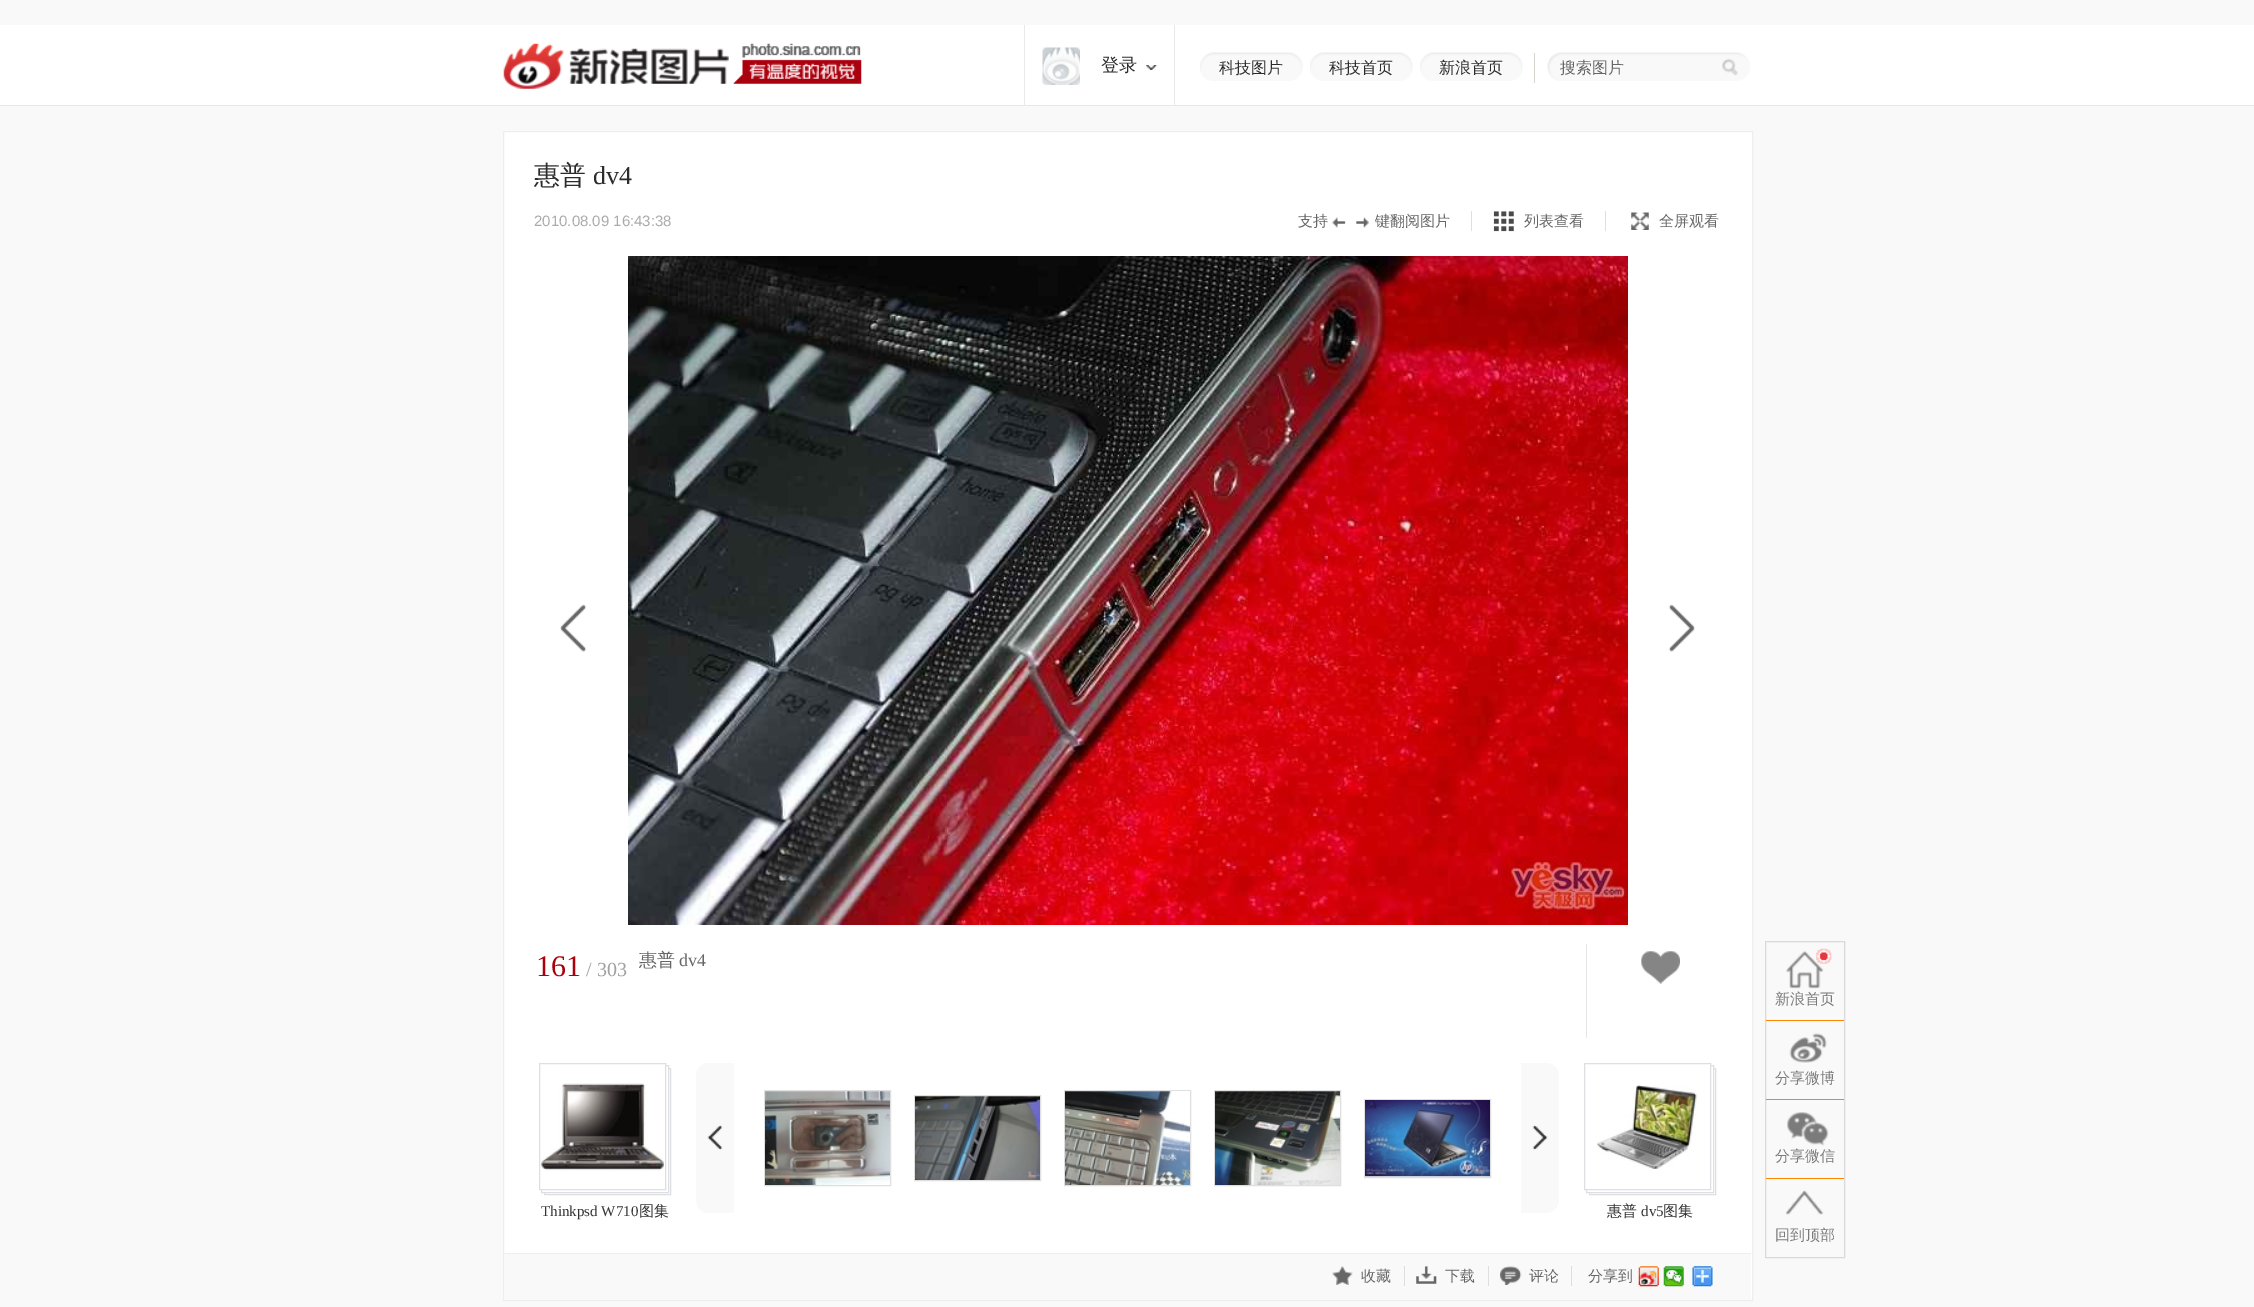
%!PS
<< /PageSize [2254 1307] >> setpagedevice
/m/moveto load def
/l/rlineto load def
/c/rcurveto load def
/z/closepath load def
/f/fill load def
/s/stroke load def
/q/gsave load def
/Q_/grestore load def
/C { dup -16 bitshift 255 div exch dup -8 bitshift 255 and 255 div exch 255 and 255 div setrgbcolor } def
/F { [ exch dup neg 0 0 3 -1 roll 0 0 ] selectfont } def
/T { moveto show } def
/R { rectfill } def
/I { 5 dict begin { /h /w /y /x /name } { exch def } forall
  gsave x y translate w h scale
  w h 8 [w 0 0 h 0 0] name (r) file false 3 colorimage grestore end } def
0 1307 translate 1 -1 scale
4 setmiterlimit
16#F9F9F9 C
0 0 2254 1307 R
16#FFFFFF C
0 25 2254 80 R
16#E8E8E8 C
0 105 2254 1 R
(1.rgb) 503 43 359 46 I
16#E9E9E9 C
1174 25 1 80 R
1024 25 1 80 R
(2.rgb) 1042 47 38 38 I
/WenQuanYiZenHei-Medium 18 F
16#2C2C2C C
(登录) 1101 71 T
(3.rgb) 1146 65 11 5 I
(4.rgb) 1200 52 103 29 I
/WenQuanYiZenHei-Medium 16 F
(科技图片) 1219 73 T
(4.rgb) 1310 52 103 29 I
(科技首页) 1329 73 T
(4.rgb) 1420 52 103 29 I
(新浪首页) 1439 73 T
16#D7D4CF C
1534 53 1 30 R
(5.rgb) 1547 52 203 29 I
16#666666 C
(搜索图片) 1560 73 T
16#FFFFFF C
503.5 131.5 m 1249 0 l 0 1169 l -1249 0 l z q f Q_
16#EEEEEE C
s
/WenQuanYiZenHei-Medium 26 F
16#2C2C2C C
(惠普) 534 184 T
/LiberationSerif-Regular 26 F
(dv4) 593 184 T
/LiberationSans-Regular 15 F
16#ABABAB C
(2010.08.09 16:43:38) 534 226 T
16#DFDFDF C
1471 211 1 20 R
/WenQuanYiZenHei-Medium 15 F
16#666666 C
(支持) 1298 226 T
(6.rgb) 1332 217 37 11 I
(键翻阅图片) 1375 226 T
16#DFDFDF C
1605 211 1 20 R
(7.rgb) 1493 211 21 21 I
16#666666 C
(列表查看) 1524 226 T
(8.rgb) 1631 212 18 18 I
(全屏观看) 1659 226 T
(9.rgb) 560 604 27 48 I
(10.rgb) 628 256 1000 669 I
(11.rgb) 1668 604 27 48 I
16#E6E6E6 C
1586 944 1 94 R
/LiberationSerif-Regular 30 F
16#AB000E C
(161) 536 976 T
/LiberationSerif-Regular 20 F
16#A1A1A1 C
(/ 303) 586 976 T
/WenQuanYiZenHei-Medium 18 F
16#666666 C
(惠普) 639 966 T
/LiberationSerif-Regular 18 F
(dv4) 679 966 T
(12.rgb) 1641 951 39 33 I
16#F9F9F9 C
709 1063 m 25 0 l 0 150 l -25 0 l -7 0 -13 -6 -13 -13 c 0 -124 l 0 -7 6 -13 13 -13 c z f
(13.rgb) 707 1125 16 25 I
16#DFDFDF C
764.5 1090.5 126 95 rectstroke
(14.rgb) 765 1091 125 94 I
914.5 1095.5 126 85 rectstroke
(15.rgb) 915 1096 125 84 I
1064.5 1090.5 126 95 rectstroke
(16.rgb) 1065 1091 125 94 I
1214.5 1090.5 126 95 rectstroke
(17.rgb) 1215 1091 125 94 I
1364.5 1099.5 126 78 rectstroke
(18.rgb) 1365 1100 125 77 I
16#F9F9F9 C
1521 1063 m 25 0 l 7 0 13 6 13 13 c 0 124 l 0 7 -6 13 -13 13 c -25 0 l z f
(19.rgb) 1532 1125 16 25 I
16#DEDFE3 C
544.5 1068.5 126 126 rectstroke
16#FFFFFF C
544 1068 124 124 R
16#DEDFE3 C
541.5 1065.5 127 127 rectstroke
16#FFFFFF C
541 1065 124 124 R
16#DEDFE3 C
539.5 1063.5 126 126 rectstroke
(20.rgb) 541 1083 123 88 I
/LiberationSerif-Regular 15 F
16#333333 C
(Thinkpsd W710) 541 1216 T
/WenQuanYiZenHei-Medium 15 F
(图集) 639 1216 T
16#DEDFE3 C
1589.5 1068.5 126 126 rectstroke
16#FFFFFF C
1589 1068 124 124 R
16#DEDFE3 C
1586.5 1065.5 127 127 rectstroke
16#FFFFFF C
1586 1065 124 124 R
16#DEDFE3 C
1584.5 1063.5 126 126 rectstroke
(21.rgb) 1597 1085 100 84 I
16#333333 C
(惠普) 1607 1216 T
/LiberationSerif-Regular 15 F
(dv5) 1641 1216 T
/WenQuanYiZenHei-Medium 15 F
(图集) 1663 1216 T
16#F9F9F9 C
504 1254 1247 46 R
16#EEEEEE C
504 1253 1247 1 R
16#DFDFDF C
1404 1266 1 20 R
(22.rgb) 1332 1266 21 19 I
16#666666 C
(收藏) 1361 1281 T
16#DFDFDF C
1488 1266 1 20 R
(23.rgb) 1416 1266 21 18 I
16#666666 C
(下载) 1445 1281 T
16#DFDFDF C
1571 1266 1 20 R
(24.rgb) 1500 1266 22 19 I
16#666666 C
(评论) 1529 1281 T
(分享到) 1588 1281 T
(25.rgb) 1638 1266 21 21 I
(26.rgb) 1663 1266 21 21 I
(27.rgb) 1692 1266 21 21 I
16#D9D9D9 C
1765.5 941.5 79 316 rectstroke
(28.rgb) 1786 950 38 39 I
16#FF8500 C
1766 1020 78 1 R
(29.rgb) 1816 948 16 16 I
16#7B7B7B C
(新浪首页) 1775 1004 T
(30.rgb) 1789 1033 38 30 I
16#FF8500 C
1766 1099 78 1 R
16#7B7B7B C
(分享微博) 1775 1083 T
(31.rgb) 1787 1112 42 34 I
16#FF8500 C
1766 1178 78 1 R
16#7B7B7B C
(分享微信) 1775 1161 T
(32.rgb) 1786 1190 38 25 I
(回到顶部) 1775 1240 T
showpage
